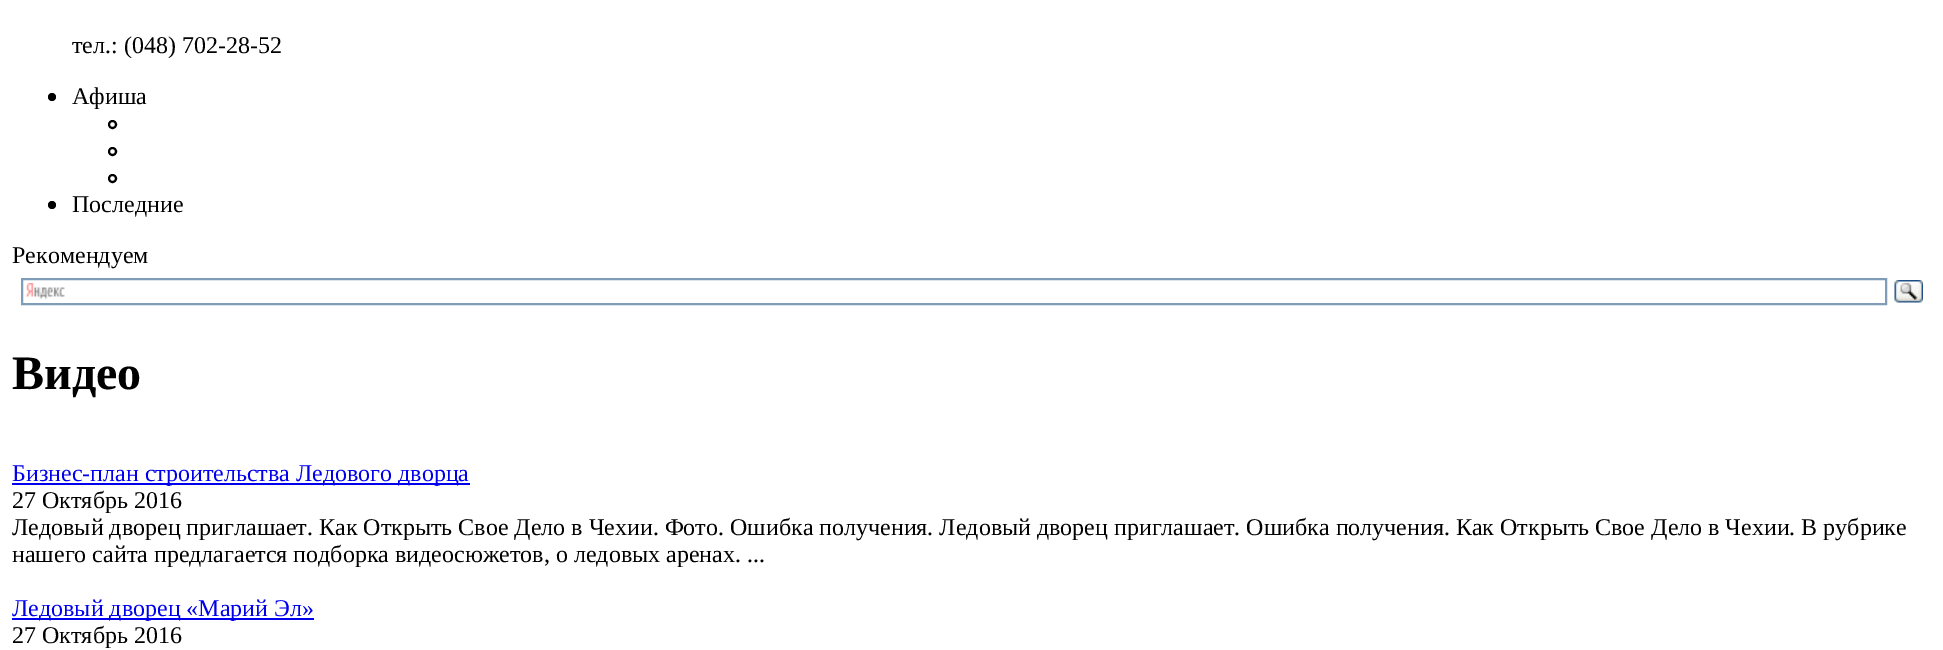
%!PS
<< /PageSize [1943 650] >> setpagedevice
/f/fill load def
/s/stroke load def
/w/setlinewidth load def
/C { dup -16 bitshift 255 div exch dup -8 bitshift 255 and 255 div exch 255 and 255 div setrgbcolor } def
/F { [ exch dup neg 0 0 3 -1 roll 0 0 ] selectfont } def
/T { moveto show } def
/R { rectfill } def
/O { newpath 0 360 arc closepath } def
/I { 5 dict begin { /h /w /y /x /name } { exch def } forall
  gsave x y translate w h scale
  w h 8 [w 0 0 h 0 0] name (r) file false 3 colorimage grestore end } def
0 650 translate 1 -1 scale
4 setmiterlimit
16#FFFFFF C
0 0 1943 650 R
/LiberationSerif-Regular 24 F
16#000000 C
(тел.: \(048\) 702-28-52) 72 53 T
52 97 4 O f
(Афиша) 72 104 T
2 w
112.5 124.5 3.5 O s
112.5 151.5 3.5 O s
112.5 178.5 3.5 O s
52 205 4 O f
(Последние) 72 212 T
(Рекомендуем) 12 263 T
(1.rgb) 25 283 40 17 I
16#7F9DB9 C
22 279 1864 25 rectstroke
(2.rgb) 1894 280 29 23 I
/LiberationSerif-Bold 48 F
16#000000 C
(Видео) 12 389 T
16#0000EE C
12 483 458 2 R
/LiberationSerif-Regular 24 F
(Бизнес-план строительства Ледового дворца) 12 481 T
16#000000 C
(27 Октябрь 2016) 12 508 T
(Ледовый дворец приглашает. Как Открыть Свое Дело в Чехии. Фото. Ошибка получения. Ледовый дворец приглашает. Ошибка получения. Как Открыть Свое Дело в Чехии. В рубрике) 12 535 T
(нашего сайта предлагается подборка видеосюжетов, о ледовых аренах. ...) 12 562 T
16#0000EE C
12 618 302 2 R
(Ледовый дворец «Марий Эл») 12 616 T
16#000000 C
(27 Октябрь 2016) 12 643 T
showpage
